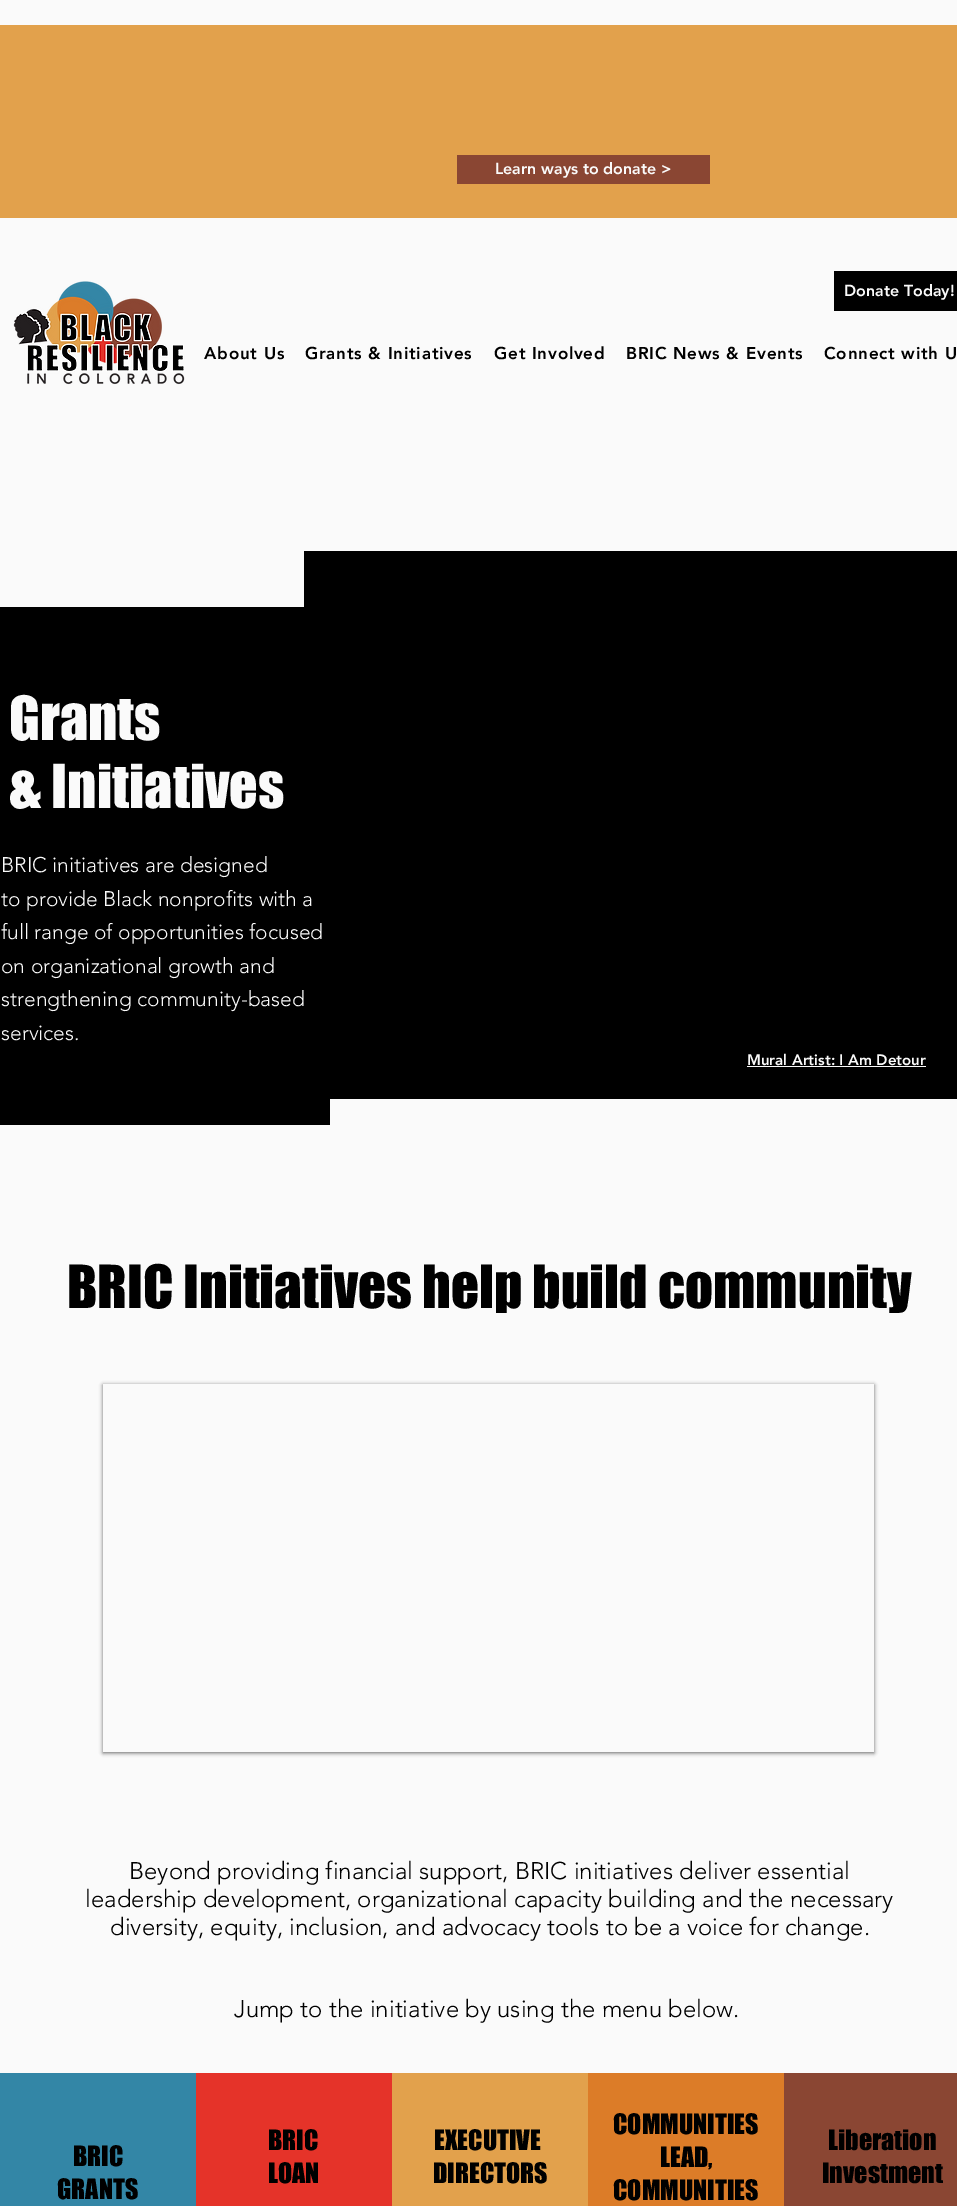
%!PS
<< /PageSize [957 2206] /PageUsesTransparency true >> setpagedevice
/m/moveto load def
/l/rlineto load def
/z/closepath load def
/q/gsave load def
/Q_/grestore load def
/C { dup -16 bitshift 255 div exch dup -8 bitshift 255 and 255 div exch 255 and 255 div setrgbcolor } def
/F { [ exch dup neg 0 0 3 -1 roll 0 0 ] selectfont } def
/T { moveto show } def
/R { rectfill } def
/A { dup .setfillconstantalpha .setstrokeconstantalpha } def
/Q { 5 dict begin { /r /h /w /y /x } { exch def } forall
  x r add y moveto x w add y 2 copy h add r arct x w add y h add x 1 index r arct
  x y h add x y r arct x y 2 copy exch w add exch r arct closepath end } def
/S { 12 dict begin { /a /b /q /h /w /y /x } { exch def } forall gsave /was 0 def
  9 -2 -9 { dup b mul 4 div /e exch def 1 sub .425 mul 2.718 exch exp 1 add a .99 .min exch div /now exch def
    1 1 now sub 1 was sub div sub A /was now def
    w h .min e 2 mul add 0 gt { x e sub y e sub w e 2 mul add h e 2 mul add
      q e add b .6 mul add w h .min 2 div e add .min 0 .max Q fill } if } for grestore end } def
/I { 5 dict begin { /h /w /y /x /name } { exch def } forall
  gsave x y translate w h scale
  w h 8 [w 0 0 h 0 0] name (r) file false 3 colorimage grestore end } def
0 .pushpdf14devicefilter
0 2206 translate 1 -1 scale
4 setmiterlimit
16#FAFAFA C
0 0 957 2206 R
16#E2A14C C
0 25 957 193 R
16#8A4633 C
457 155 253 29 R
/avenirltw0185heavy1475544-Black 16 F
16#FAFAFA C
(Learn ways to donate >) 495 174 T
(1.rgb) 13 281 172 104 I
16#000000 C
834 271 123 40 R
16#FAFAFA C
(Donate Today!) 844 296 T
/avenirltw0185heavy1475544-Black 17 F
16#000000 C
204 359 m .8 0 (About Us) ashow
305 359 m .8 0 (Grants & Initiatives) ashow
494 359 m .8 0 (Get Involved) ashow
626 359 m .8 0 (BRIC News & Events) ashow
824 359 m .8 0 (Connect with U) ashow
304 551 653 548 R
0 607 330 518 R
/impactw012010-Regular 56 F
16#FAFAFA C
(Grants) 9 740 T
(& Initiatives) 9 808 T
/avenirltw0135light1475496-Light 21 F
(BRIC initiatives are designed) 1 872 T
(to provide Black nonprofits with a) 1 906 T
(full range of opportunities focused) 1 939 T
(on organizational growth and) 1 973 T
(strengthening community-based) 1 1006 T
(services.) 1 1040 T
/avenirltw0185heavy1475544-Black 15 F
(Mural Artist: I Am Detour) 747 1065 T
747 1066 179 1 R
/impactw012010-Regular 55 F
16#000000 C
(BRIC Initiatives help build community) 67 1308 T
q
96 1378 m 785 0 l 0 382 l -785 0 l z 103 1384 m 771 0 l 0 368 l -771 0 l z eoclip newpath
103 1385 771 368 0 2 .6 S
Q_
/avenirltw0135light1475496-Light 24 F
(Beyond providing financial support, BRIC initiatives deliver essential) 129 1879 T
(leadership development, organizational capacity building and the necessary) 85 1907 T
(diversity, equity, inclusion, and advocacy tools to be a voice for change.) 110 1935 T
(Jump to the initiative by using the menu below.) 234 2017 T
16#3386A6 C
0 2073 196 133 R
/impactw012010-Regular 26 F
16#000000 C
(BRIC) 73 2166 T
(GRANTS) 57 2199 T
16#E53329 C
196 2073 196 133 R
16#000000 C
(BRIC) 268 2150 T
(LOAN) 268 2183 T
16#E2A14C C
392 2073 196 133 R
16#000000 C
(EXECUTIVE) 434 2150 T
(DIRECTORS) 433 2183 T
16#DC7C28 C
588 2073 196 133 R
16#000000 C
(COMMUNITIES) 613 2134 T
(LEAD,) 660 2167 T
(COMMUNITIES) 613 2200 T
16#8A4633 C
784 2073 173 133 R
16#000000 C
(Liberation) 828 2150 T
(Investment) 822 2183 T
.poppdf14devicefilter showpage
